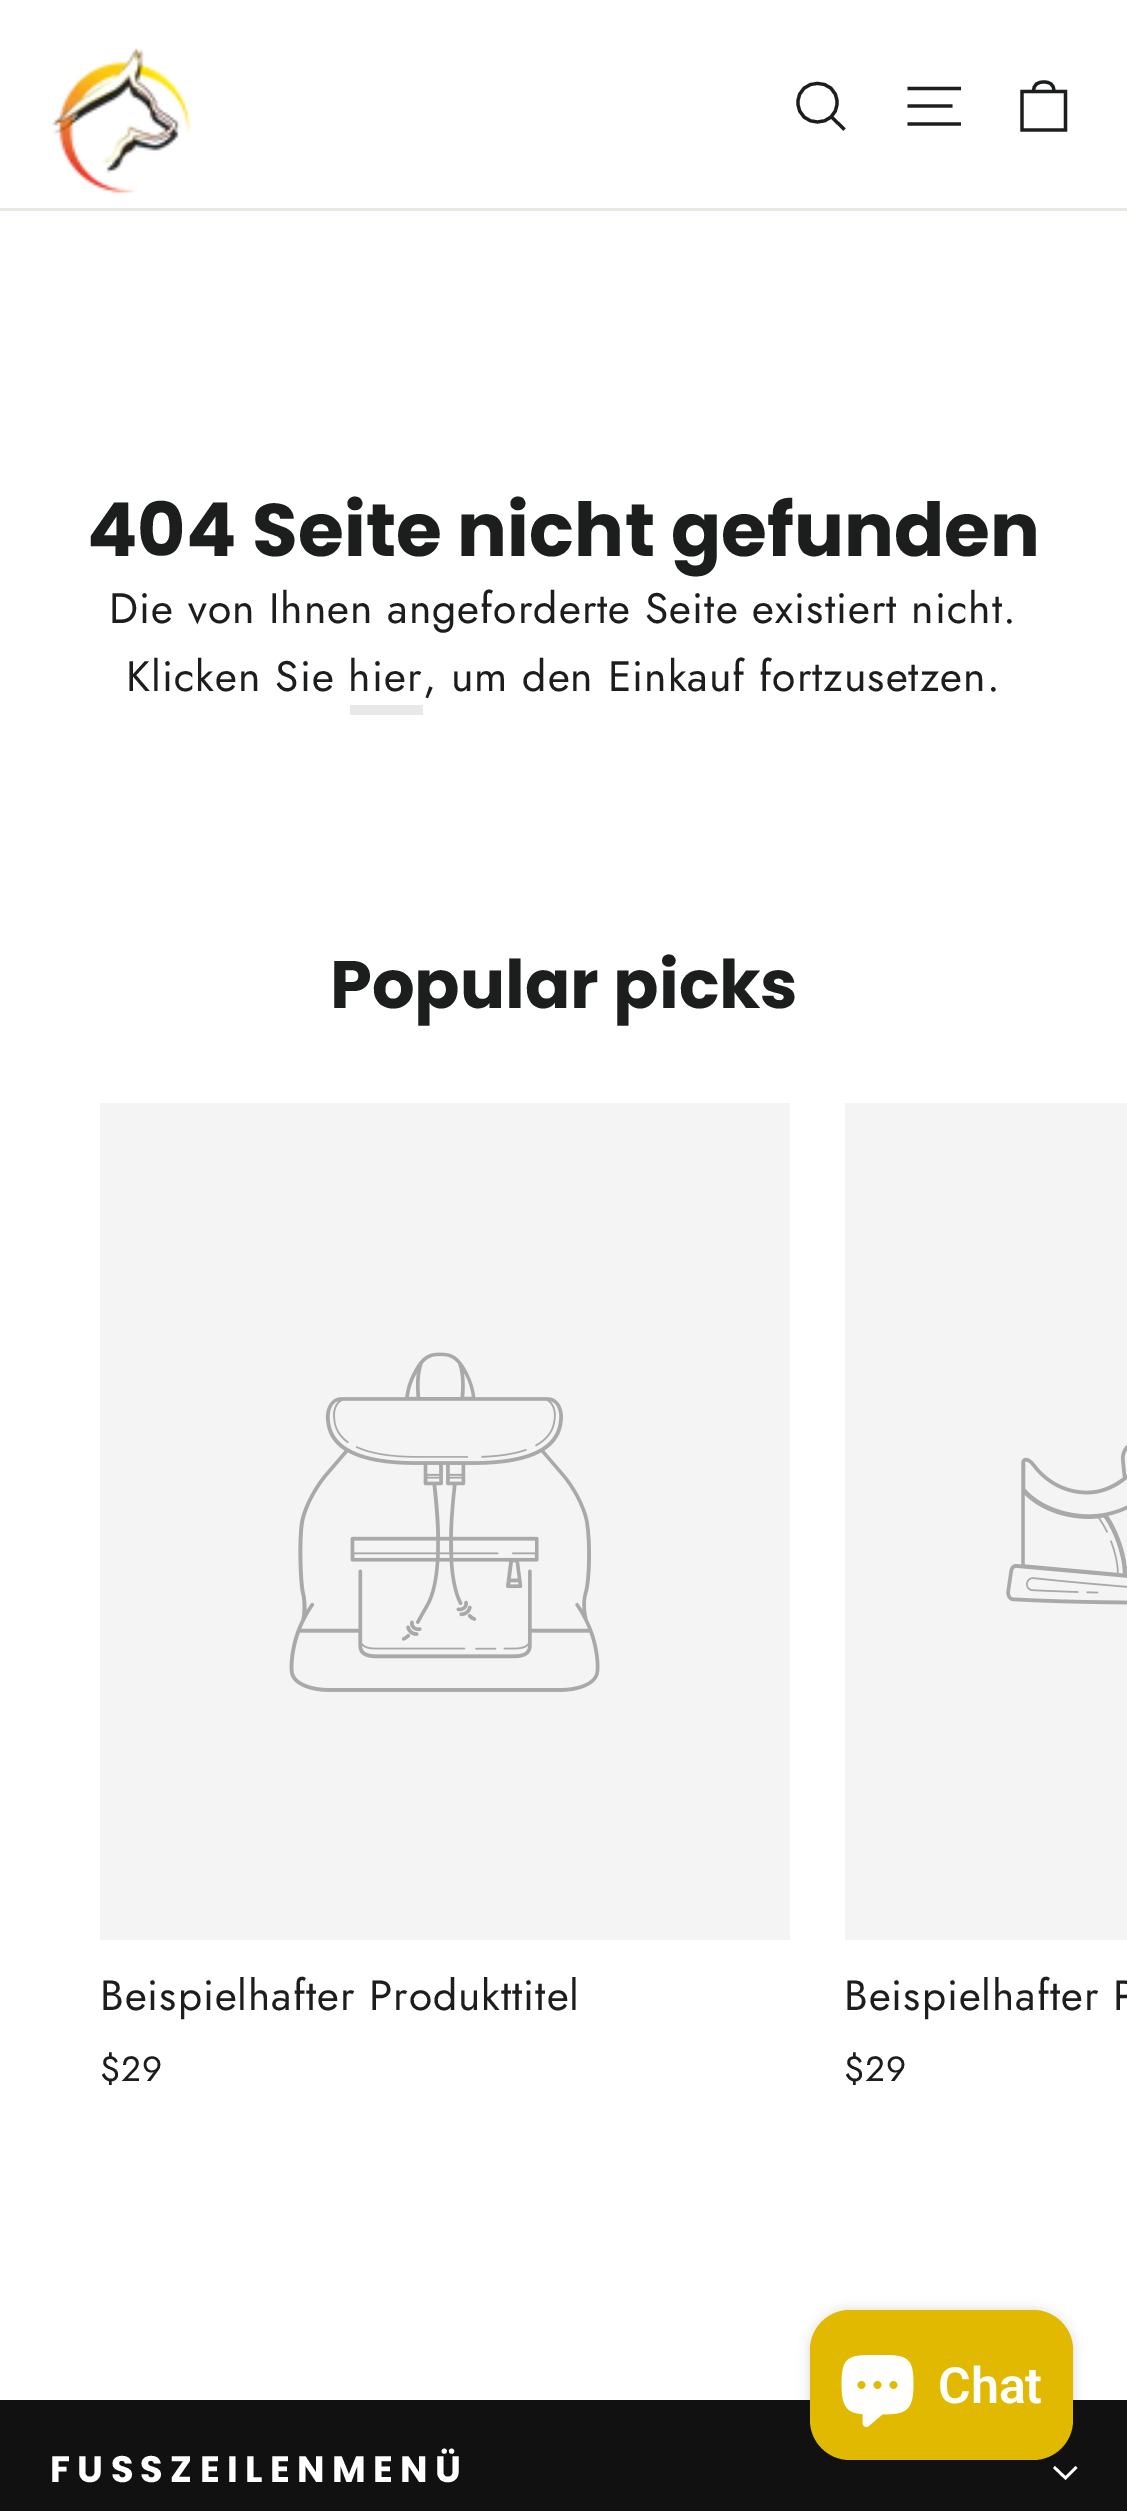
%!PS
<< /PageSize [1127 2511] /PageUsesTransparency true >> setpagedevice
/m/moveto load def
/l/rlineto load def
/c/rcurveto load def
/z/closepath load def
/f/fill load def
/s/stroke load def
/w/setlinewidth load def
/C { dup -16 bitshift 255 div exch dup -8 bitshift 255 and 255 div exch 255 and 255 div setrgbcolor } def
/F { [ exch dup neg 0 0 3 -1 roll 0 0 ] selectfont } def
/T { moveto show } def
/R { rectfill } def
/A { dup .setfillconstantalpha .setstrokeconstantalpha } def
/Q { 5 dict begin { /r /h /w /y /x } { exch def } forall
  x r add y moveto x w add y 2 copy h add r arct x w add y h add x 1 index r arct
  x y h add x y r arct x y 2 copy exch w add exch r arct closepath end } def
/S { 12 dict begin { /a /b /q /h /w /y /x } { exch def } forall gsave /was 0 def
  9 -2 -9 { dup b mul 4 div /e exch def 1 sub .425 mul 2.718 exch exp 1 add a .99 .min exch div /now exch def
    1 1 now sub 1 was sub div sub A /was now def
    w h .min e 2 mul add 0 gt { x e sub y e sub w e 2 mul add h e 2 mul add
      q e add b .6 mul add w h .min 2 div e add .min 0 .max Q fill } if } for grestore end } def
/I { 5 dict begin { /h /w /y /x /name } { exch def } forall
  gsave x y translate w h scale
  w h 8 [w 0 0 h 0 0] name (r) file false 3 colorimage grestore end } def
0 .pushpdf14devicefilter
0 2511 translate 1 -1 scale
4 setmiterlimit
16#FFFFFF C
0 0 1127 2511 R
16#E8E8E1 C
0 208 1127 3 R
(1.rgb) 52 47 139 147 I
16#1C1D1D C
3.2 w
837 102.5 m 0 26 -39 26 -39 0 c 0 -25.5 39 -25.5 39 0 c z 844.5 129.5 m -13 -12.5 l s
907.5 88.5 m 53.5 0 l 907.5 106 m 45 0 l 907.5 124 m 53.5 0 l s
1022 91.5 m 43.5 0 l 0 38.5 l -43.5 0 l z 1033.5 91.5 m 0 -7.5 4.5 -9.5 10.5 -9.5 c 5.5 0 10 2 10 9.5 c s
/Poppins-Bold 74.4 F
(404 Seite nicht gefunden) 87 556 T
/Jost-Regular 42.5 F
109 623 m 1.05 0 (Die von Ihnen angeforderte Seite existiert nicht.) ashow
126 691 m 1.05 0 (Klicken Sie hier) ashow
423 691 m 1.05 0 (, um den Einkauf fortzusetzen.) ashow
16#E8E8E8 C
350 705 73 10 R
/Poppins-Bold 67 F
16#1C1D1D C
(Popular picks) 330 1008 T
16#F4F4F4 C
100 1103 690 837 R
(2.rgb) 289 1352 311 340 I
/Jost-Regular 42.25 F
16#1C1D1D C
100 2010 m 1.05 0 (Beispielhafter Produkttitel) ashow
/Jost-Regular 35 F
100 2081 m 1.05 0 ($29) ashow
16#F4F4F4 C
845 1103 282 837 R
(3.rgb) 1006 1445 121 160 I
/Jost-Regular 42.25 F
16#1C1D1D C
844 2010 m 1.05 0 (Beispielhafter P) ashow
/Jost-Regular 35 F
844 2081 m 1.05 0 ($29) ashow
16#111111 C
0 2400 1127 111 R
/Poppins-Bold 36.75 F
16#FFFFFF C
50 2482 m 7.3 0 (FUSSZEILENMENÜ) ashow
2.7 w
1054 2467 m 11.5 11 l 11 -11 l s
16#000000 C
810 2310 263 150 40 6 .15 S
16#E1B900 C
810 2310 263 150 40 Q f
(4.rgb) 841 2355 73 72 I
/Roboto-SemiBold 50 F
16#FFFFFF C
(Chat) 938 2403 T
.poppdf14devicefilter showpage
